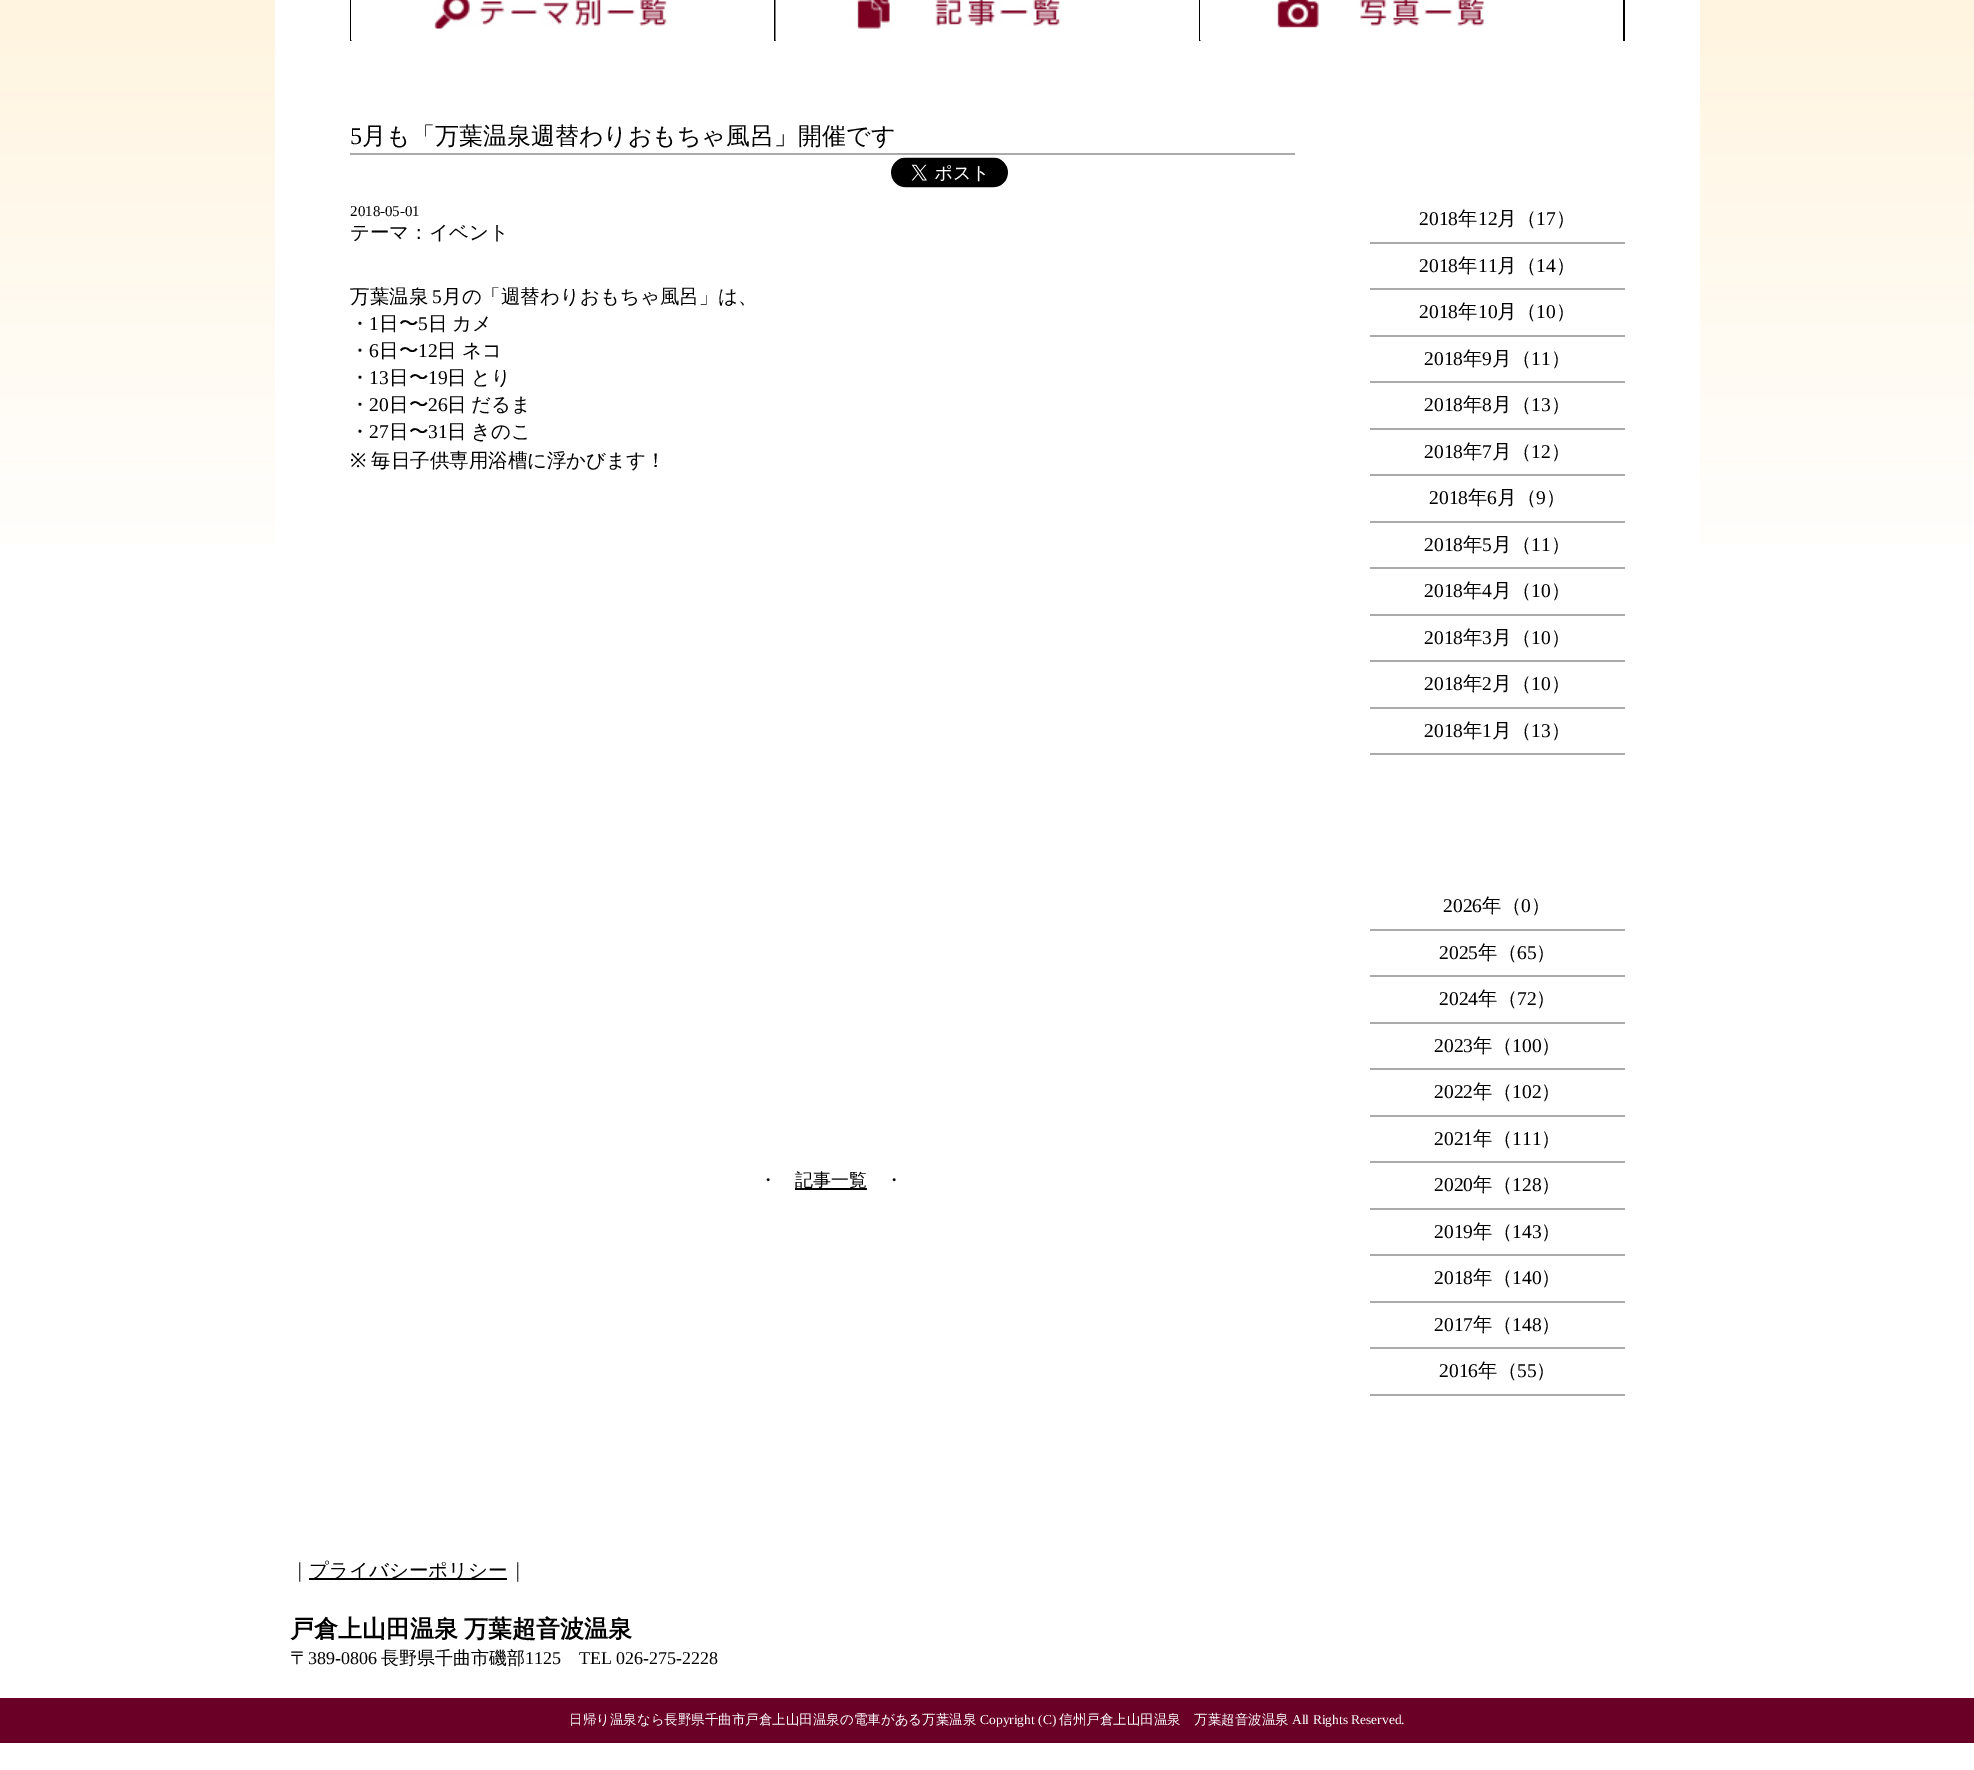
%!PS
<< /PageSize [1974 1770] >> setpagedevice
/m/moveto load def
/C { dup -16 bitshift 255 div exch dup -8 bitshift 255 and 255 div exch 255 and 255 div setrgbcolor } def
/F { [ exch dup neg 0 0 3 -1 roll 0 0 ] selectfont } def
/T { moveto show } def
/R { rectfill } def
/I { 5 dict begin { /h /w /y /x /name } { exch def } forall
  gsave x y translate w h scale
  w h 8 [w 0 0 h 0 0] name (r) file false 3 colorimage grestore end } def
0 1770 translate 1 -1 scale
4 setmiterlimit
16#FFFFFF C
0 0 1974 1770 R
(1.rgb) 0 0 1974 544 I
275 0 1425 544 R
16#000000 C
350 0 2 41 R
(2.rgb) 351 0 316 41 I
774 0 2 41 R
(3.rgb) 775 0 285 41 I
1199 0 2 41 R
(4.rgb) 1200 0 285 41 I
1623 0 2 41 R
/LiberationSerif-Regular 24 F
(5) 350 144 T
/WenQuanYiZenHei-Medium 24 F
(月も「万葉温泉週替わりおもちゃ風呂」開催です) 362 144 T
16#AAAAAA C
350 153 945 2 R
(5.rgb) 891 157 117 31 I
/LiberationSerif-Regular 15 F
16#000000 C
(2018-05-01) 350 216 T
/WenQuanYiZenHei-Medium 19.5 F
(テーマ：イベント) 350 239 T
(万葉温泉) 350 303 T
/LiberationSerif-Regular 19.5 F
(5) 432 303 T
/WenQuanYiZenHei-Medium 19.5 F
(月の「週替わりおもちゃ風呂」は、) 442 303 T
(・) 350 330 T
/LiberationSerif-Regular 19.5 F
(1) 369 330 T
/WenQuanYiZenHei-Medium 19.5 F
(日〜) 379 330 T
/LiberationSerif-Regular 19.5 F
(5) 418 330 T
/WenQuanYiZenHei-Medium 19.5 F
(日) 428 330 T
(カメ) 452 330 T
(・) 350 357 T
/LiberationSerif-Regular 19.5 F
(6) 369 357 T
/WenQuanYiZenHei-Medium 19.5 F
(日〜) 379 357 T
/LiberationSerif-Regular 19.5 F
(12) 418 357 T
/WenQuanYiZenHei-Medium 19.5 F
(日) 437 357 T
(ネコ) 462 357 T
(・) 350 384 T
/LiberationSerif-Regular 19.5 F
(13) 369 384 T
/WenQuanYiZenHei-Medium 19.5 F
(日〜) 389 384 T
/LiberationSerif-Regular 19.5 F
(19) 428 384 T
/WenQuanYiZenHei-Medium 19.5 F
(日) 447 384 T
(とり) 471 384 T
(・) 350 411 T
/LiberationSerif-Regular 19.5 F
(20) 369 411 T
/WenQuanYiZenHei-Medium 19.5 F
(日〜) 389 411 T
/LiberationSerif-Regular 19.5 F
(26) 428 411 T
/WenQuanYiZenHei-Medium 19.5 F
447 411 m -1 0 32 (日 だるま) widthshow
(・) 350 438 T
/LiberationSerif-Regular 19.5 F
(27) 369 438 T
/WenQuanYiZenHei-Medium 19.5 F
(日〜) 389 438 T
/LiberationSerif-Regular 19.5 F
(31) 428 438 T
/WenQuanYiZenHei-Medium 19.5 F
(日) 447 438 T
(きのこ) 471 438 T
/NotoSans-Regular 19.5 F
(※) 350 467 T
/WenQuanYiZenHei-Medium 19.5 F
(毎日子供専用浴槽に浮かびます！) 371 467 T
/WenQuanYiZenHei-Medium 18 F
(・) 759 1186 T
795 1188 72 2 R
(記事一覧) 795 1186 T
(・) 885 1186 T
/LiberationSerif-Regular 19.5 F
(2018) 1419 225 T
/WenQuanYiZenHei-Medium 19.5 F
(年) 1458 225 T
/LiberationSerif-Regular 19.5 F
(12) 1478 225 T
/WenQuanYiZenHei-Medium 19.5 F
(月（) 1497 225 T
/LiberationSerif-Regular 19.5 F
(17) 1536 225 T
/WenQuanYiZenHei-Medium 19.5 F
(）) 1556 225 T
16#AAAAAA C
1370 242 255 2 R
/LiberationSerif-Regular 19.5 F
16#000000 C
(2018) 1419 272 T
/WenQuanYiZenHei-Medium 19.5 F
(年) 1458 272 T
/LiberationSerif-Regular 19.5 F
(11) 1478 272 T
/WenQuanYiZenHei-Medium 19.5 F
(月（) 1497 272 T
/LiberationSerif-Regular 19.5 F
(14) 1536 272 T
/WenQuanYiZenHei-Medium 19.5 F
(）) 1556 272 T
16#AAAAAA C
1370 288 255 2 R
/LiberationSerif-Regular 19.5 F
16#000000 C
(2018) 1419 318 T
/WenQuanYiZenHei-Medium 19.5 F
(年) 1458 318 T
/LiberationSerif-Regular 19.5 F
(10) 1478 318 T
/WenQuanYiZenHei-Medium 19.5 F
(月（) 1497 318 T
/LiberationSerif-Regular 19.5 F
(10) 1536 318 T
/WenQuanYiZenHei-Medium 19.5 F
(）) 1556 318 T
16#AAAAAA C
1370 335 255 2 R
/LiberationSerif-Regular 19.5 F
16#000000 C
(2018) 1424 365 T
/WenQuanYiZenHei-Medium 19.5 F
(年) 1463 365 T
/LiberationSerif-Regular 19.5 F
(9) 1482 365 T
/WenQuanYiZenHei-Medium 19.5 F
(月（) 1492 365 T
/LiberationSerif-Regular 19.5 F
(11) 1531 365 T
/WenQuanYiZenHei-Medium 19.5 F
(）) 1551 365 T
16#AAAAAA C
1370 381 255 2 R
/LiberationSerif-Regular 19.5 F
16#000000 C
(2018) 1424 411 T
/WenQuanYiZenHei-Medium 19.5 F
(年) 1463 411 T
/LiberationSerif-Regular 19.5 F
(8) 1482 411 T
/WenQuanYiZenHei-Medium 19.5 F
(月（) 1492 411 T
/LiberationSerif-Regular 19.5 F
(13) 1531 411 T
/WenQuanYiZenHei-Medium 19.5 F
(）) 1551 411 T
16#AAAAAA C
1370 428 255 2 R
/LiberationSerif-Regular 19.5 F
16#000000 C
(2018) 1424 458 T
/WenQuanYiZenHei-Medium 19.5 F
(年) 1463 458 T
/LiberationSerif-Regular 19.5 F
(7) 1482 458 T
/WenQuanYiZenHei-Medium 19.5 F
(月（) 1492 458 T
/LiberationSerif-Regular 19.5 F
(12) 1531 458 T
/WenQuanYiZenHei-Medium 19.5 F
(）) 1551 458 T
16#AAAAAA C
1370 474 255 2 R
/LiberationSerif-Regular 19.5 F
16#000000 C
(2018) 1429 504 T
/WenQuanYiZenHei-Medium 19.5 F
(年) 1468 504 T
/LiberationSerif-Regular 19.5 F
(6) 1487 504 T
/WenQuanYiZenHei-Medium 19.5 F
(月（) 1497 504 T
/LiberationSerif-Regular 19.5 F
(9) 1536 504 T
/WenQuanYiZenHei-Medium 19.5 F
(）) 1546 504 T
16#AAAAAA C
1370 521 255 2 R
/LiberationSerif-Regular 19.5 F
16#000000 C
(2018) 1424 551 T
/WenQuanYiZenHei-Medium 19.5 F
(年) 1463 551 T
/LiberationSerif-Regular 19.5 F
(5) 1482 551 T
/WenQuanYiZenHei-Medium 19.5 F
(月（) 1492 551 T
/LiberationSerif-Regular 19.5 F
(11) 1531 551 T
/WenQuanYiZenHei-Medium 19.5 F
(）) 1551 551 T
16#AAAAAA C
1370 567 255 2 R
/LiberationSerif-Regular 19.5 F
16#000000 C
(2018) 1424 597 T
/WenQuanYiZenHei-Medium 19.5 F
(年) 1463 597 T
/LiberationSerif-Regular 19.5 F
(4) 1482 597 T
/WenQuanYiZenHei-Medium 19.5 F
(月（) 1492 597 T
/LiberationSerif-Regular 19.5 F
(10) 1531 597 T
/WenQuanYiZenHei-Medium 19.5 F
(）) 1551 597 T
16#AAAAAA C
1370 614 255 2 R
/LiberationSerif-Regular 19.5 F
16#000000 C
(2018) 1424 644 T
/WenQuanYiZenHei-Medium 19.5 F
(年) 1463 644 T
/LiberationSerif-Regular 19.5 F
(3) 1482 644 T
/WenQuanYiZenHei-Medium 19.5 F
(月（) 1492 644 T
/LiberationSerif-Regular 19.5 F
(10) 1531 644 T
/WenQuanYiZenHei-Medium 19.5 F
(）) 1551 644 T
16#AAAAAA C
1370 660 255 2 R
/LiberationSerif-Regular 19.5 F
16#000000 C
(2018) 1424 690 T
/WenQuanYiZenHei-Medium 19.5 F
(年) 1463 690 T
/LiberationSerif-Regular 19.5 F
(2) 1482 690 T
/WenQuanYiZenHei-Medium 19.5 F
(月（) 1492 690 T
/LiberationSerif-Regular 19.5 F
(10) 1531 690 T
/WenQuanYiZenHei-Medium 19.5 F
(）) 1551 690 T
16#AAAAAA C
1370 707 255 2 R
/LiberationSerif-Regular 19.5 F
16#000000 C
(2018) 1424 737 T
/WenQuanYiZenHei-Medium 19.5 F
(年) 1463 737 T
/LiberationSerif-Regular 19.5 F
(1) 1482 737 T
/WenQuanYiZenHei-Medium 19.5 F
(月（) 1492 737 T
/LiberationSerif-Regular 19.5 F
(13) 1531 737 T
/WenQuanYiZenHei-Medium 19.5 F
(）) 1551 737 T
16#AAAAAA C
1370 753 255 2 R
/LiberationSerif-Regular 19.5 F
16#000000 C
(2026) 1443 912 T
/WenQuanYiZenHei-Medium 19.5 F
(年（) 1482 912 T
/LiberationSerif-Regular 19.5 F
(0) 1521 912 T
/WenQuanYiZenHei-Medium 19.5 F
(）) 1531 912 T
16#AAAAAA C
1370 929 255 2 R
/LiberationSerif-Regular 19.5 F
16#000000 C
(2025) 1439 959 T
/WenQuanYiZenHei-Medium 19.5 F
(年（) 1478 959 T
/LiberationSerif-Regular 19.5 F
(65) 1517 959 T
/WenQuanYiZenHei-Medium 19.5 F
(）) 1536 959 T
16#AAAAAA C
1370 975 255 2 R
/LiberationSerif-Regular 19.5 F
16#000000 C
(2024) 1439 1005 T
/WenQuanYiZenHei-Medium 19.5 F
(年（) 1478 1005 T
/LiberationSerif-Regular 19.5 F
(72) 1517 1005 T
/WenQuanYiZenHei-Medium 19.5 F
(）) 1536 1005 T
16#AAAAAA C
1370 1022 255 2 R
/LiberationSerif-Regular 19.5 F
16#000000 C
(2023) 1434 1052 T
/WenQuanYiZenHei-Medium 19.5 F
(年（) 1473 1052 T
/LiberationSerif-Regular 19.5 F
(100) 1512 1052 T
/WenQuanYiZenHei-Medium 19.5 F
(）) 1541 1052 T
16#AAAAAA C
1370 1068 255 2 R
/LiberationSerif-Regular 19.5 F
16#000000 C
(2022) 1434 1098 T
/WenQuanYiZenHei-Medium 19.5 F
(年（) 1473 1098 T
/LiberationSerif-Regular 19.5 F
(102) 1512 1098 T
/WenQuanYiZenHei-Medium 19.5 F
(）) 1541 1098 T
16#AAAAAA C
1370 1115 255 2 R
/LiberationSerif-Regular 19.5 F
16#000000 C
(2021) 1434 1145 T
/WenQuanYiZenHei-Medium 19.5 F
(年（) 1473 1145 T
/LiberationSerif-Regular 19.5 F
(111) 1512 1145 T
/WenQuanYiZenHei-Medium 19.5 F
(）) 1541 1145 T
16#AAAAAA C
1370 1161 255 2 R
/LiberationSerif-Regular 19.5 F
16#000000 C
(2020) 1434 1191 T
/WenQuanYiZenHei-Medium 19.5 F
(年（) 1473 1191 T
/LiberationSerif-Regular 19.5 F
(128) 1512 1191 T
/WenQuanYiZenHei-Medium 19.5 F
(）) 1541 1191 T
16#AAAAAA C
1370 1208 255 2 R
/LiberationSerif-Regular 19.5 F
16#000000 C
(2019) 1434 1238 T
/WenQuanYiZenHei-Medium 19.5 F
(年（) 1473 1238 T
/LiberationSerif-Regular 19.5 F
(143) 1512 1238 T
/WenQuanYiZenHei-Medium 19.5 F
(）) 1541 1238 T
16#AAAAAA C
1370 1254 255 2 R
/LiberationSerif-Regular 19.5 F
16#000000 C
(2018) 1434 1284 T
/WenQuanYiZenHei-Medium 19.5 F
(年（) 1473 1284 T
/LiberationSerif-Regular 19.5 F
(140) 1512 1284 T
/WenQuanYiZenHei-Medium 19.5 F
(）) 1541 1284 T
16#AAAAAA C
1370 1301 255 2 R
/LiberationSerif-Regular 19.5 F
16#000000 C
(2017) 1434 1331 T
/WenQuanYiZenHei-Medium 19.5 F
(年（) 1473 1331 T
/LiberationSerif-Regular 19.5 F
(148) 1512 1331 T
/WenQuanYiZenHei-Medium 19.5 F
(）) 1541 1331 T
16#AAAAAA C
1370 1347 255 2 R
/LiberationSerif-Regular 19.5 F
16#000000 C
(2016) 1439 1377 T
/WenQuanYiZenHei-Medium 19.5 F
(年（) 1478 1377 T
/LiberationSerif-Regular 19.5 F
(55) 1517 1377 T
/WenQuanYiZenHei-Medium 19.5 F
(）) 1536 1377 T
16#AAAAAA C
1370 1394 255 2 R
16#000000 C
(｜) 290 1577 T
309 1578 198 2 R
(プライバシーポリシー｜) 309 1577 T
/WenQuanYiZenHei-Bold 24 F
290 1637 m -1 0 32 (戸倉上山田温泉 万葉超音波温泉) widthshow
/WenQuanYiZenHei-Medium 18 F
(〒) 290 1664 T
/LiberationSerif-Regular 18 F
(389-0806) 308 1664 T
/WenQuanYiZenHei-Medium 18 F
(長野県千曲市磯部) 381 1664 T
/LiberationSerif-Regular 18 F
(1125) 525 1664 T
(TEL 026-275-2228) 579 1664 T
16#6A0026 C
0 1698 1974 45 R
/WenQuanYiZenHei-Medium 13.5 F
16#FFFFFF C
(日帰り温泉なら長野県千曲市戸倉上山田温泉の電車がある万葉温泉) 569 1724 T
/LiberationSerif-Regular 13.5 F
(Copyright \(C\)) 980 1724 T
/WenQuanYiZenHei-Medium 13.5 F
(信州戸倉上山田温泉　万葉超音波温泉) 1059 1724 T
/LiberationSerif-Regular 13.5 F
(All Rights Reserved.) 1292 1724 T
showpage
